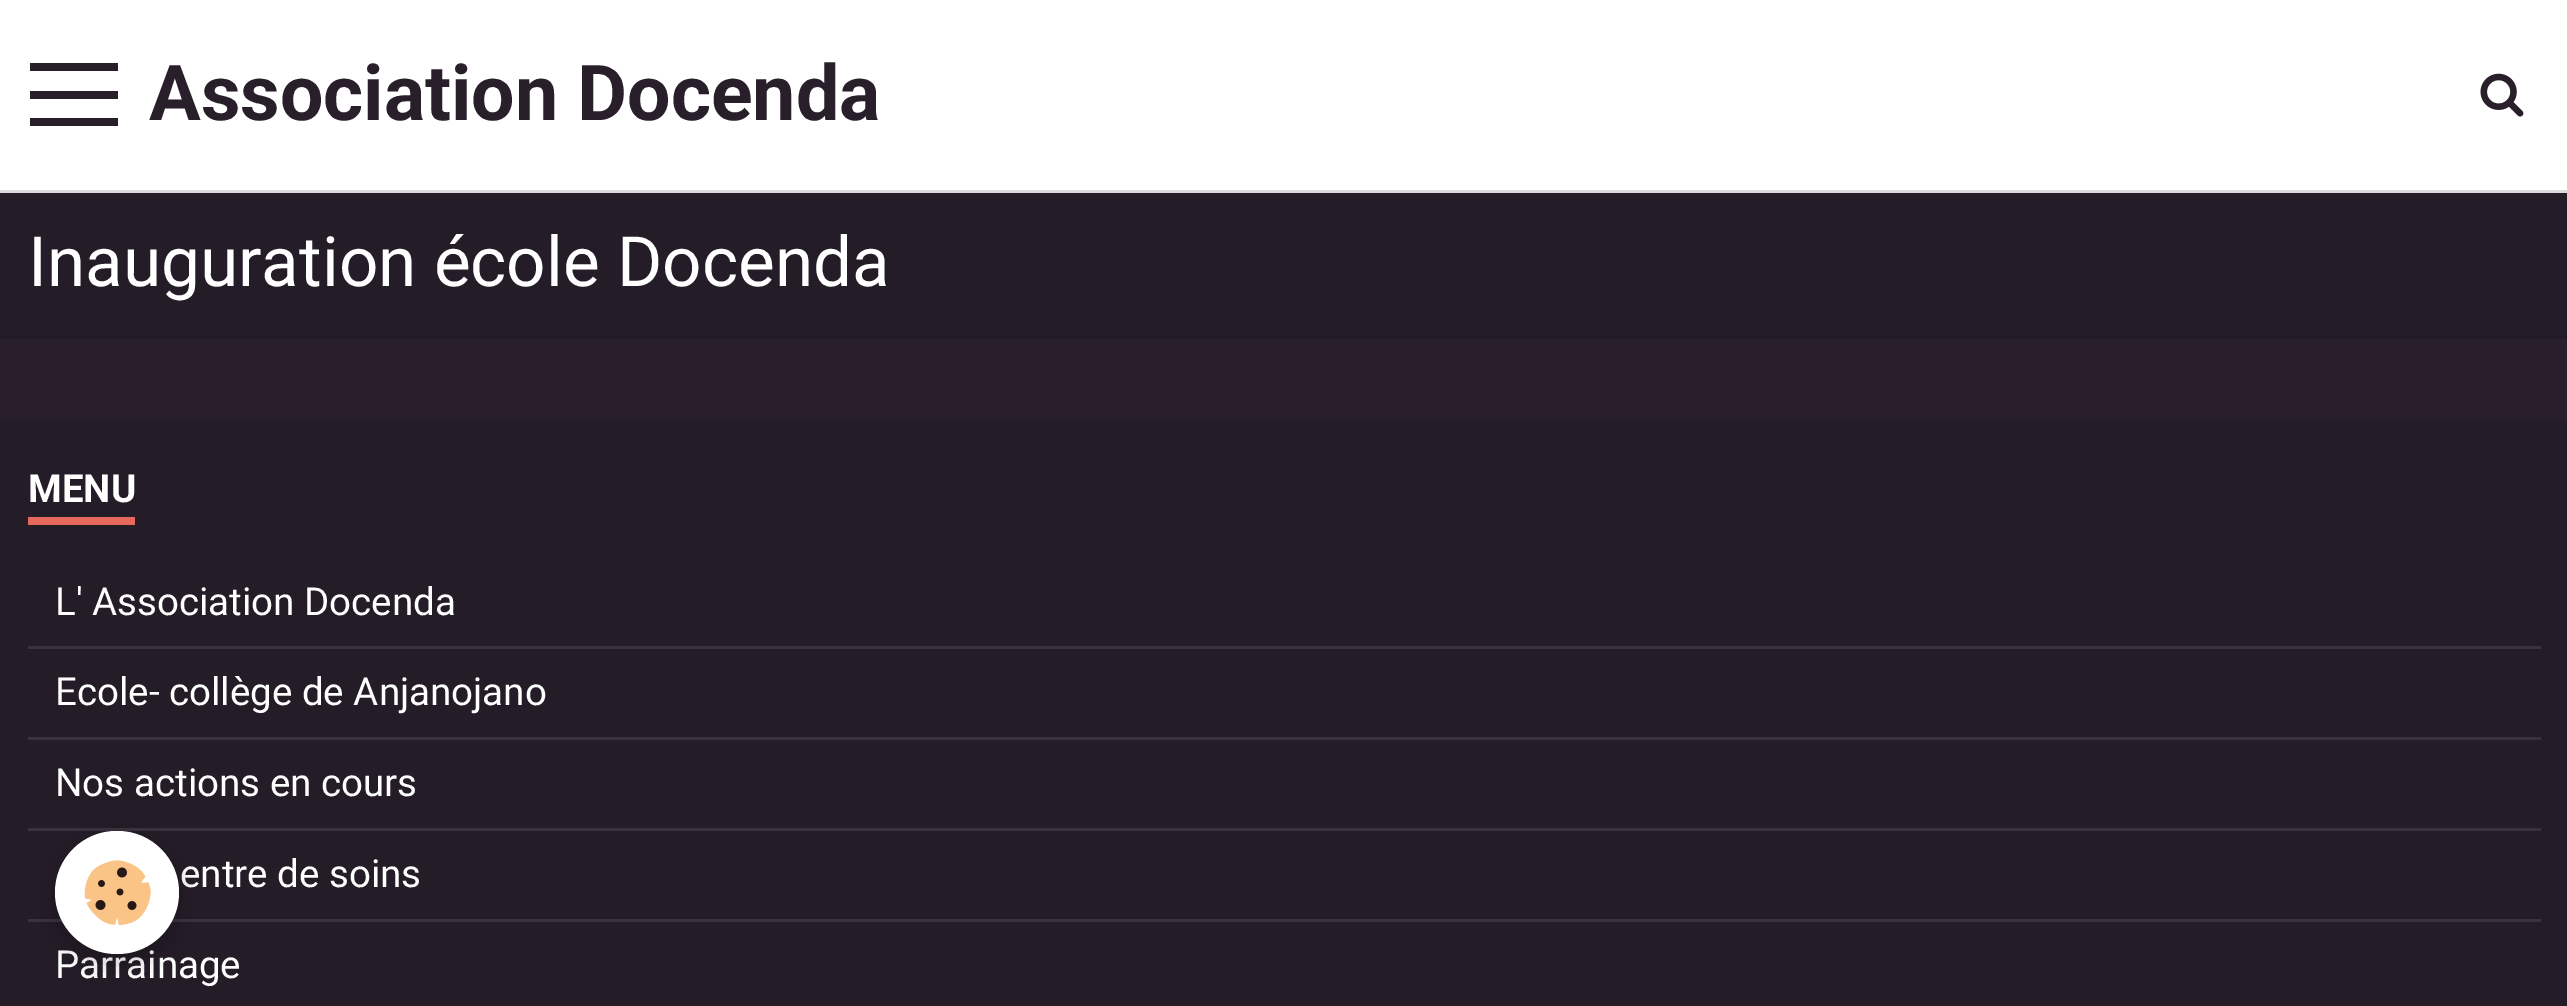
%!PS
<< /PageSize [2567 1006] /PageUsesTransparency true >> setpagedevice
/f/fill load def
/C { dup -16 bitshift 255 div exch dup -8 bitshift 255 and 255 div exch 255 and 255 div setrgbcolor } def
/F { [ exch dup neg 0 0 3 -1 roll 0 0 ] selectfont } def
/T { moveto show } def
/R { rectfill } def
/A { dup .setfillconstantalpha .setstrokeconstantalpha } def
/Q { 5 dict begin { /r /h /w /y /x } { exch def } forall
  x r add y moveto x w add y 2 copy h add r arct x w add y h add x 1 index r arct
  x y h add x y r arct x y 2 copy exch w add exch r arct closepath end } def
/S { 12 dict begin { /a /b /q /h /w /y /x } { exch def } forall gsave /was 0 def
  9 -2 -9 { dup b mul 4 div /e exch def 1 sub .425 mul 2.718 exch exp 1 add a .99 .min exch div /now exch def
    1 1 now sub 1 was sub div sub A /was now def
    w h .min e 2 mul add 0 gt { x e sub y e sub w e 2 mul add h e 2 mul add
      q e add b .6 mul add w h .min 2 div e add .min 0 .max Q fill } if } for grestore end } def
/I { 5 dict begin { /h /w /y /x /name } { exch def } forall
  gsave x y translate w h scale
  w h 8 [w 0 0 h 0 0] name (r) file false 3 colorimage grestore end } def
0 .pushpdf14devicefilter
0 1006 translate 1 -1 scale
4 setmiterlimit
16#281F2B C
0 0 2567 1006 R
16#241C27 C
0 338 2567 1 R
16#FFFFFF C
0 0 2567 190 R
16#DBDBDB C
0 190 2567 3 R
16#281F2B C
30 91 88 8 R
30 63 88 8 R
30 118 88 8 R
/Roboto-Bold 77 F
(Association Docenda) 149 120 T
(1.rgb) 2480 73 44 44 I
16#241C27 C
0 193 2567 143 R
16#201923 C
0 336 2567 2 R
/Roboto-Regular 69.25 F
16#FFFFFF C
(Inauguration école Docenda) 28 286 T
16#241C27 C
0 421 2567 585 R
/Roboto-Bold 38.5 F
16#FFFFFF C
(MENU) 28 502 T
16#E7695B C
28 517 107 8 R
16#3A333D C
28 646 2513 3 R
/Roboto-Regular 38.5 F
16#FFFFFF C
(L' Association Docenda) 55 615 T
16#3A333D C
28 737 2513 3 R
16#FFFFFF C
(Ecole- collège de Anjanojano) 55 705 T
16#3A333D C
28 828 2513 3 R
16#FFFFFF C
(Nos actions en cours) 55 796 T
16#3A333D C
28 919 2513 3 R
16#FFFFFF C
(entre de soins) 180 887 T
(Parrainage) 55 978 T
16#000000 C
55 839 124 124 62 14 .24 S
16#FFFFFF C
55 831 124 123 61.5 Q f
(2.rgb) 84 860 67 66 I
.poppdf14devicefilter showpage
